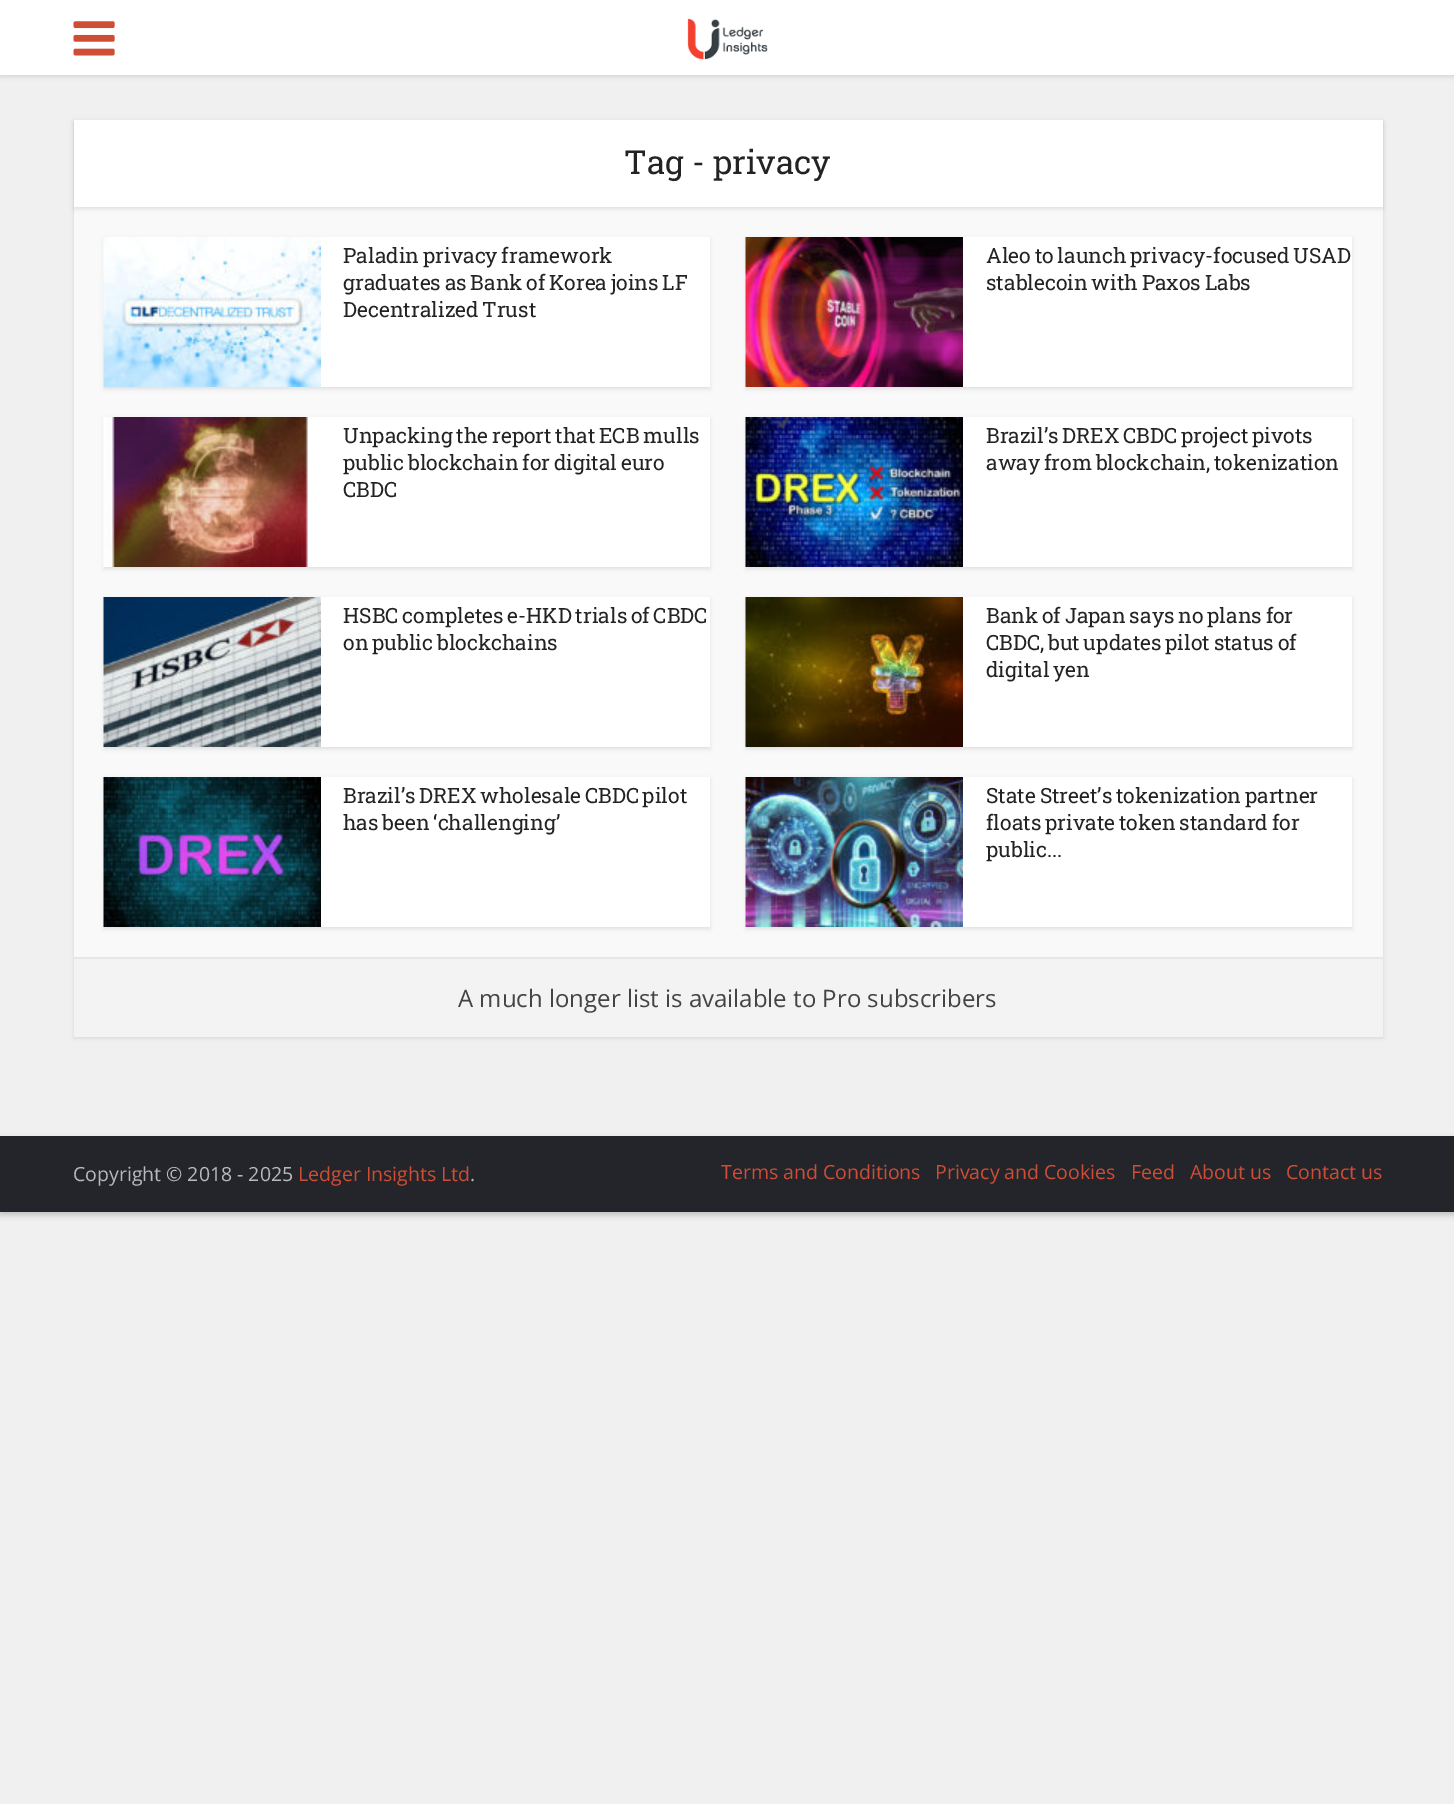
%!PS
<< /PageSize [1454 1804] /PageUsesTransparency true >> setpagedevice
/m/moveto load def
/C { dup -16 bitshift 255 div exch dup -8 bitshift 255 and 255 div exch 255 and 255 div setrgbcolor } def
/F { [ exch dup neg 0 0 3 -1 roll 0 0 ] selectfont } def
/T { moveto show } def
/R { rectfill } def
/A { dup .setfillconstantalpha .setstrokeconstantalpha } def
/Q { 5 dict begin { /r /h /w /y /x } { exch def } forall
  x r add y moveto x w add y 2 copy h add r arct x w add y h add x 1 index r arct
  x y h add x y r arct x y 2 copy exch w add exch r arct closepath end } def
/S { 12 dict begin { /a /b /q /h /w /y /x } { exch def } forall gsave /was 0 def
  9 -2 -9 { dup b mul 4 div /e exch def 1 sub .425 mul 2.718 exch exp 1 add a .99 .min exch div /now exch def
    1 1 now sub 1 was sub div sub A /was now def
    w h .min e 2 mul add 0 gt { x e sub y e sub w e 2 mul add h e 2 mul add
      q e add b .6 mul add w h .min 2 div e add .min 0 .max Q fill } if } for grestore end } def
/I { 5 dict begin { /h /w /y /x /name } { exch def } forall
  gsave x y translate w h scale
  w h 8 [w 0 0 h 0 0] name (r) file false 3 colorimage grestore end } def
0 .pushpdf14devicefilter
0 1804 translate 1 -1 scale
4 setmiterlimit
16#F0F0F0 C
0 0 1454 1804 R
16#000000 C
0 2 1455 75 0 2 .1 S
16#FFFFFF C
0 0 1454 75 R
(1.rgb) 73 21 42 35 I
(2.rgb) 687 18 81 42 I
16#000000 C
74 122 1309 916 0 2 .1 S
16#F9F9F9 C
74 207 1309 750 R
16#000000 C
74 122 1309 87 0 2 .1 S
16#FFFFFF C
74 120 1309 87 R
/RobotoSlab-Regular 33 F
16#232323 C
(Tag - privacy) 624 174 T
16#000000 C
104 239 606 150 0 2 .1 S
16#FFFFFF C
321 237 389 150 R
(3.rgb) 103 237 218 150 I
/RobotoSlab-Regular 21 F
16#232323 C
343 263 m -1.5 0 32 (Paladin privacy framework) widthshow
343 290 m -1.5 0 32 (graduates as Bank of Korea joins LF) widthshow
343 317 m -1.5 0 32 (Decentralized Trust) widthshow
16#000000 C
746 239 606 150 0 2 .1 S
16#FFFFFF C
963 237 389 150 R
(4.rgb) 745 237 218 150 I
16#232323 C
986 263 m -1.5 0 32 (Aleo to launch privacy-focused USAD) widthshow
986 290 m -1.5 0 32 (stablecoin with Paxos Labs) widthshow
16#000000 C
104 419 606 150 0 2 .1 S
16#FFFFFF C
308 417 402 150 R
(5.rgb) 103 417 205 150 I
16#232323 C
343 443 m -1.5 0 32 (Unpacking the report that ECB mulls) widthshow
343 470 m -1.5 0 32 (public blockchain for digital euro) widthshow
(CBDC) 343 497 T
16#000000 C
746 419 606 150 0 2 .1 S
16#FFFFFF C
963 417 389 150 R
(6.rgb) 745 417 218 150 I
16#232323 C
986 443 m -1.5 0 32 (Brazil’s DREX CBDC project pivots) widthshow
986 470 m -1.5 0 32 (away from blockchain, tokenization) widthshow
16#000000 C
104 599 606 150 0 2 .1 S
16#FFFFFF C
321 597 389 150 R
(7.rgb) 103 597 218 150 I
16#232323 C
343 623 m -1.5 0 32 (HSBC completes e-HKD trials of CBDC) widthshow
343 650 m -1.5 0 32 (on public blockchains) widthshow
16#000000 C
746 599 606 150 0 2 .1 S
16#FFFFFF C
963 597 389 150 R
(8.rgb) 745 597 218 150 I
16#232323 C
986 623 m -1.5 0 32 (Bank of Japan says no plans for) widthshow
986 650 m -1.5 0 32 (CBDC, but updates pilot status of) widthshow
986 677 m -1.5 0 32 (digital yen) widthshow
16#000000 C
104 779 606 150 0 2 .1 S
16#FFFFFF C
321 777 389 150 R
(9.rgb) 103 777 218 150 I
16#232323 C
343 803 m -1.5 0 32 (Brazil’s DREX wholesale CBDC pilot) widthshow
343 830 m -1.5 0 32 (has been ‘challenging’) widthshow
16#000000 C
746 779 606 150 0 2 .1 S
16#FFFFFF C
963 777 389 150 R
(10.rgb) 745 777 218 150 I
16#232323 C
986 803 m -1.5 0 32 (State Street’s tokenization partner) widthshow
986 830 m -1.5 0 32 (floats private token standard for) widthshow
(public...) 986 857 T
16#F3F3F3 C
74 959 1309 78 R
16#E7E7E7 C
74 957 1309 2 R
/OpenSans-Regular 24 F
16#444444 C
(A much longer list is available to Pro subscribers) 458 1007 T
16#000000 C
0 1139 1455 76 0 3 .2 S
16#24252A C
0 1136 1454 76 R
/OpenSans-Regular 19.5 F
16#B9B9BB C
(Copyright © 2018 - 2025) 73 1181 T
16#CF4D35 C
(Ledger Insights Ltd) 298 1181 T
16#B9B9BB C
(.) 470 1181 T
16#CF4D35 C
(Terms and Conditions) 721 1179 T
(Privacy and Cookies) 935 1179 T
(Feed) 1131 1179 T
(About us) 1190 1179 T
(Contact us) 1286 1179 T
.poppdf14devicefilter showpage
